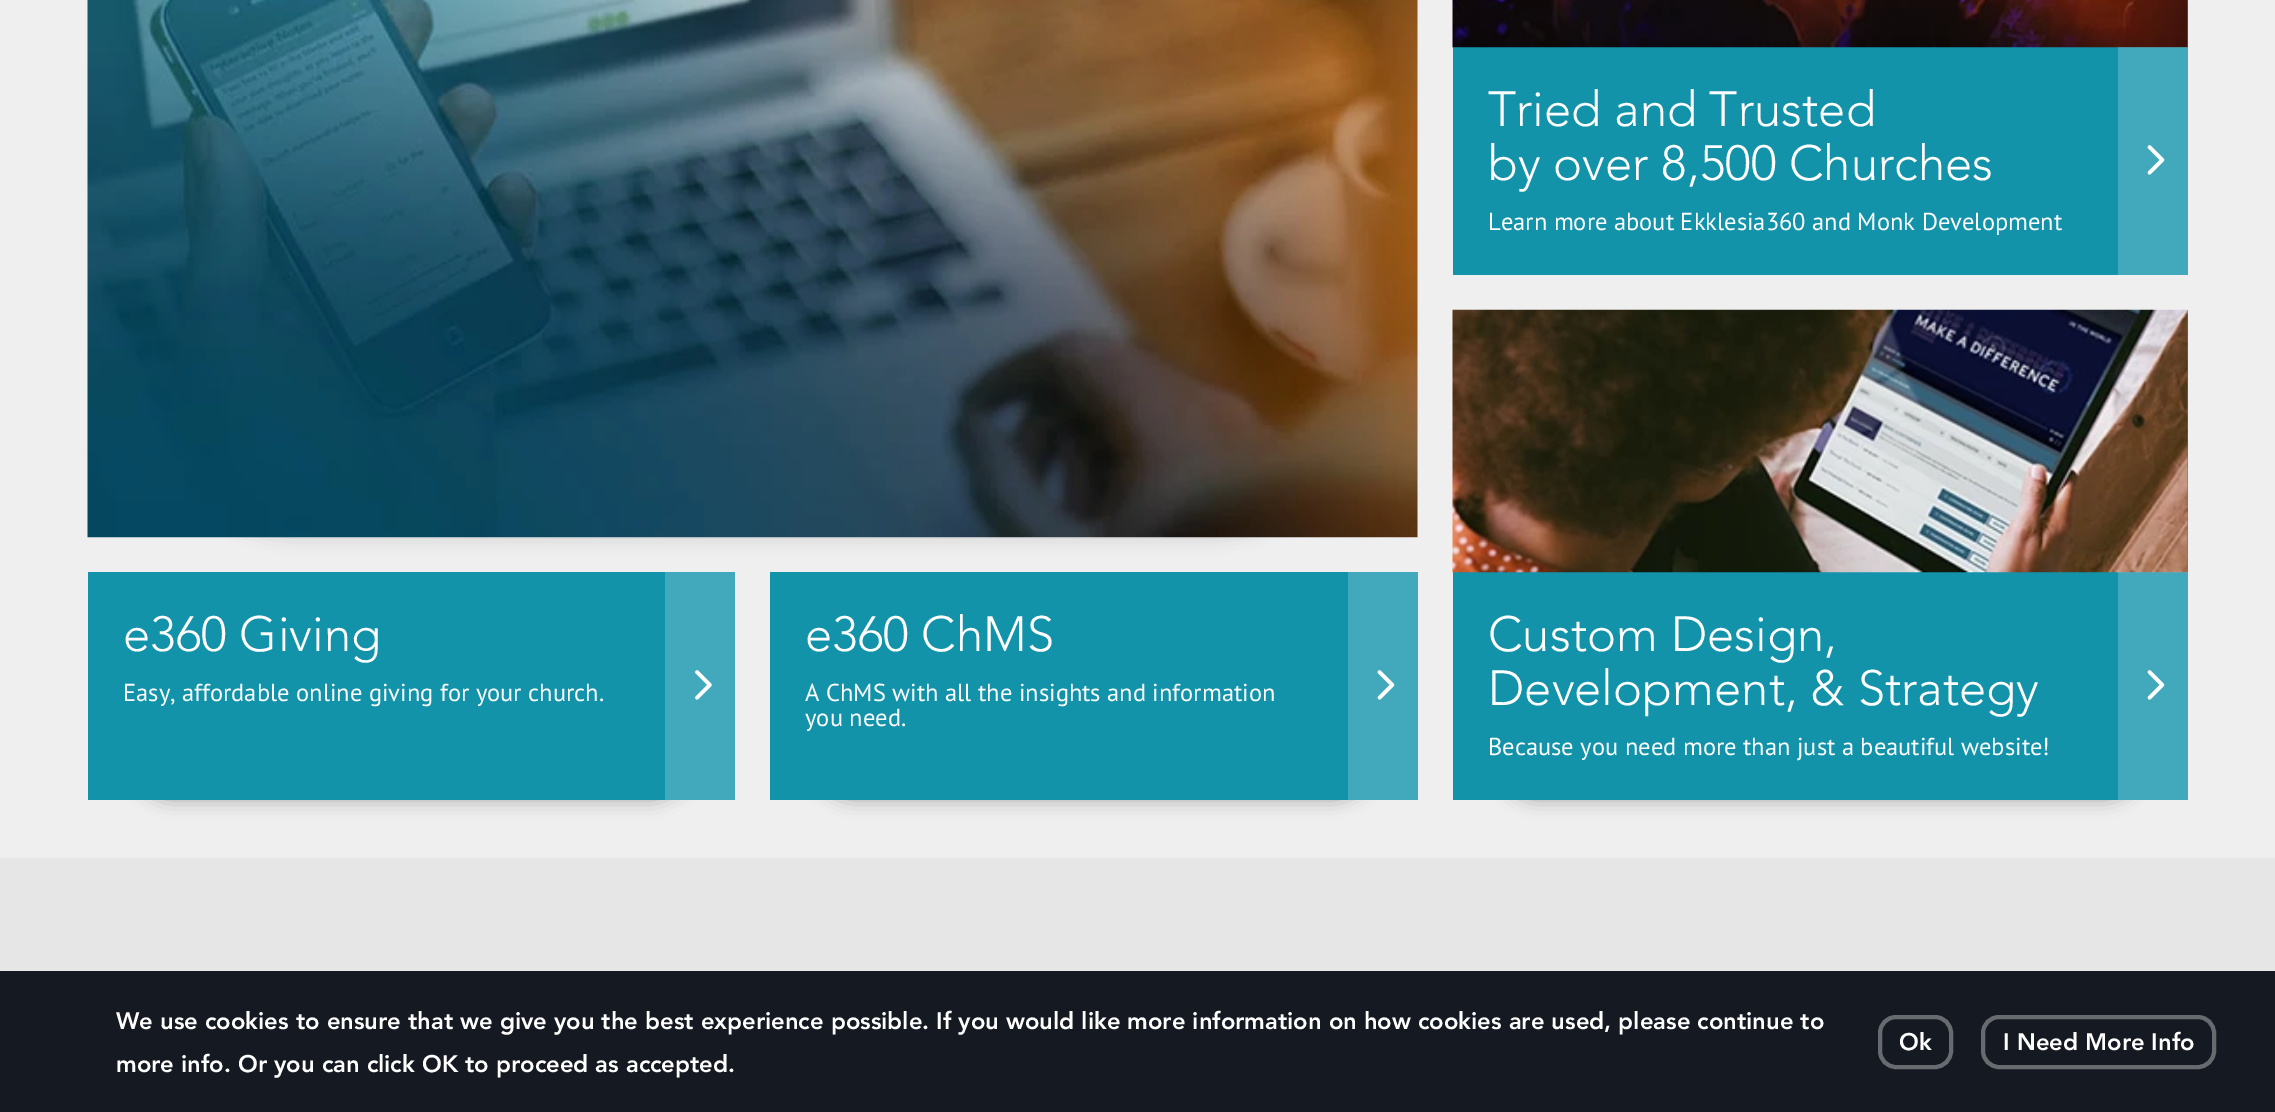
%!PS
<< /PageSize [2275 1112] /PageUsesTransparency true >> setpagedevice
/s/stroke load def
/w/setlinewidth load def
/C { dup -16 bitshift 255 div exch dup -8 bitshift 255 and 255 div exch 255 and 255 div setrgbcolor } def
/F { [ exch dup neg 0 0 3 -1 roll 0 0 ] selectfont } def
/T { moveto show } def
/R { rectfill } def
/A { dup .setfillconstantalpha .setstrokeconstantalpha } def
/Q { 5 dict begin { /r /h /w /y /x } { exch def } forall
  x r add y moveto x w add y 2 copy h add r arct x w add y h add x 1 index r arct
  x y h add x y r arct x y 2 copy exch w add exch r arct closepath end } def
/S { 12 dict begin { /a /b /q /h /w /y /x } { exch def } forall gsave /was 0 def
  9 -2 -9 { dup b mul 4 div /e exch def 1 sub .425 mul 2.718 exch exp 1 add a .99 .min exch div /now exch def
    1 1 now sub 1 was sub div sub A /was now def
    w h .min e 2 mul add 0 gt { x e sub y e sub w e 2 mul add h e 2 mul add
      q e add b .6 mul add w h .min 2 div e add .min 0 .max Q fill } if } for grestore end } def
/I { 5 dict begin { /h /w /y /x /name } { exch def } forall
  gsave x y translate w h scale
  w h 8 [w 0 0 h 0 0] name (r) file false 3 colorimage grestore end } def
0 .pushpdf14devicefilter
0 1112 translate 1 -1 scale
4 setmiterlimit
16#EFEFEF C
0 0 2275 1112 R
16#000000 C
123 30 1260 507 175 9 .15 S
(1.rgb) 87 0 1331 538 I
123 686 577 114 57 9 .15 S
123 686 577 114 57 9 .15 S
16#1293AA C
88 572 577 228 R
/Avenir-Light 49 F
16#FFFFFF C
(e360 Giving) 123 651 T
16#41A9BB C
665 572 70 228 R
(2.rgb) 695 670 17 30 I
/PTSans-Regular 24.5 F
16#FFFFFF C
(Easy, affordable online giving for your church.) 123 701 T
16#000000 C
805 686 578 114 57 9 .15 S
805 686 578 114 57 9 .15 S
16#1293AA C
770 572 578 228 R
/Avenir-Light 49 F
16#FFFFFF C
(e360 ChMS) 805 651 T
16#41A9BB C
1348 572 70 228 R
(3.rgb) 1377 670 18 30 I
/PTSans-Regular 24.5 F
16#FFFFFF C
(A ChMS with all the insights and information) 805 701 T
(you need.) 805 726 T
16#1293AA C
1453 0 735 275 R
(4.rgb) 1452 0 736 48 I
/Avenir-Light 49 F
16#FFFFFF C
(Tried and Trusted) 1488 126 T
(by over 8,500 Churches) 1488 180 T
0.2 A
2118 47 70 228 R
1 A
(5.rgb) 2147 145 18 30 I
/PTSans-Regular 24.5 F
(Learn more about Ekklesia360 and Monk Development) 1488 230 T
16#000000 C
1488 686 665 114 57 9 .15 S
1488 686 665 114 57 9 .15 S
16#1293AA C
1453 310 735 490 R
(6.rgb) 1452 309 736 264 I
/Avenir-Light 49 F
16#FFFFFF C
(Custom Design,) 1488 651 T
(Development, & Strategy) 1488 705 T
0.2 A
2118 572 70 228 R
1 A
(5.rgb) 2147 670 18 30 I
/PTSans-Regular 24.5 F
(Because you need more than just a beautiful website!) 1488 755 T
16#E6E6E6 C
0 858 2275 113 R
16#151921 C
0 971 2275 141 R
/Avenir-Black 23.8 F
16#FFFFFF C
(We use cookies to ensure that we give you the best experience possible. If you would like more information on how cookies are used, please continue to) 116 1029 T
(more info. Or you can click OK to proceed as accepted.) 116 1072 T
16#676A6F C
4 w
1880 1017 71 50 16 Q s
16#FFFFFF C
(Ok) 1899 1050 T
16#676A6F C
1983 1017 231 50 16 Q s
16#FFFFFF C
(I Need More Info) 2003 1050 T
.poppdf14devicefilter showpage
